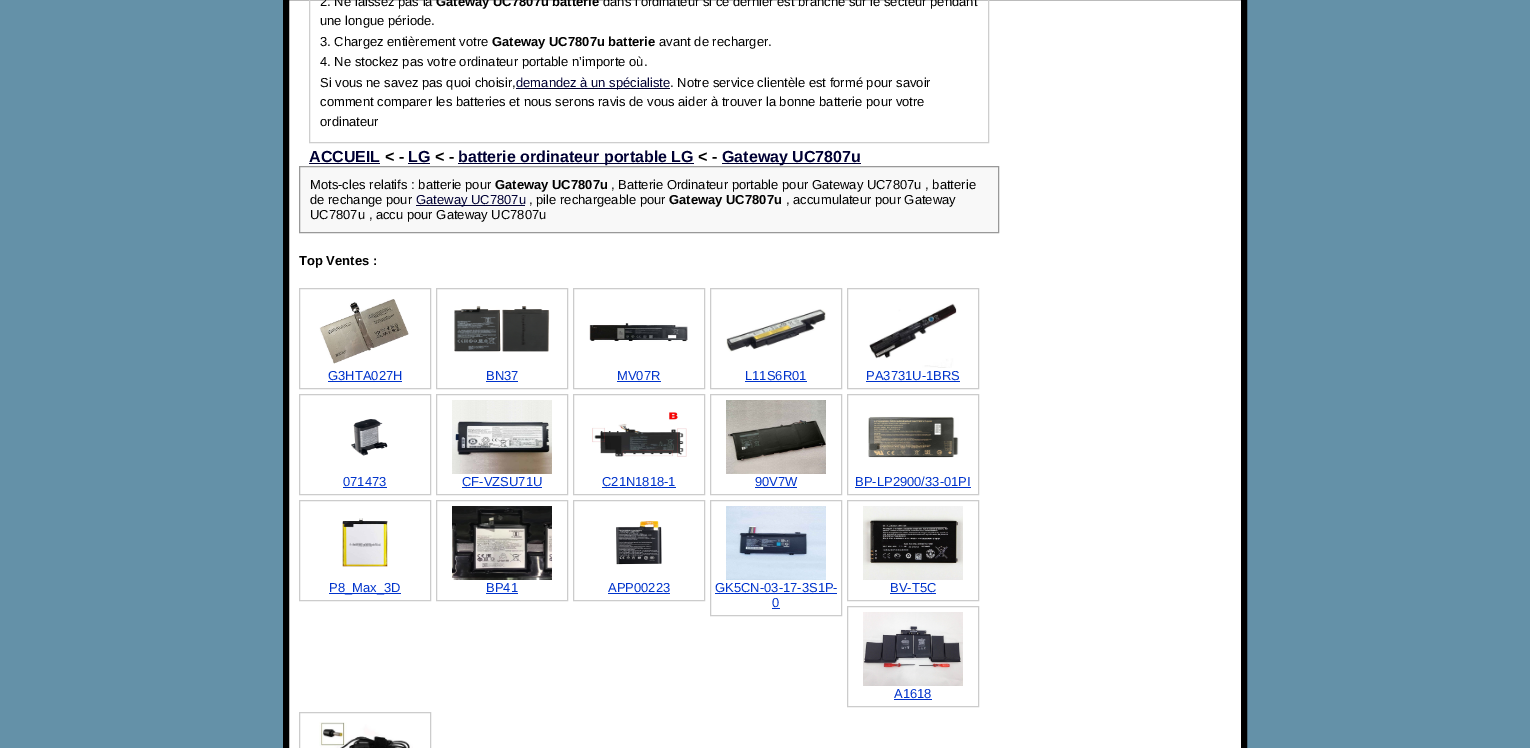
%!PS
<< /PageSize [1530 748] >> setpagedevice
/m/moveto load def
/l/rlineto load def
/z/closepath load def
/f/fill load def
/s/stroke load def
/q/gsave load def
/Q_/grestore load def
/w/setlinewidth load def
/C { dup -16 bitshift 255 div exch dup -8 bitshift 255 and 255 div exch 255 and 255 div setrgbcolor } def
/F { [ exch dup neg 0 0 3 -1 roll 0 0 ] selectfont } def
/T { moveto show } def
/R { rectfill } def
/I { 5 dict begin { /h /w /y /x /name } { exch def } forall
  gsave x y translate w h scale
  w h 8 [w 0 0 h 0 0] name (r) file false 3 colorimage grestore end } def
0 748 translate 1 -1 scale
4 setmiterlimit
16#6491A8 C
0 0 1530 748 R
16#FFFFFF C
286 -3 m 958 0 l 0 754 l -958 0 l z q f Q_
16#000000 C
6 w
s
16#CECECE C
1 w
309.5 -.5 679 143 rectstroke
/LiberationSans-Regular 13 F
16#000000 C
(2. Ne laissez pas la) 320 6 T
/LiberationSans-Bold 13 F
(Gateway UC7807u batterie) 436 6 T
/LiberationSans-Regular 13 F
(dans l’ordinateur si ce dernier est branché sur le secteur pendant) 603 6 T
(une longue période.) 320 25 T
(3. Chargez entièrement votre) 320 46 T
/LiberationSans-Bold 13 F
(Gateway UC7807u batterie) 492 46 T
/LiberationSans-Regular 13 F
(avant de recharger.) 659 46 T
(4. Ne stockez pas votre ordinateur portable n’importe où.) 320 66 T
(Si vous ne savez pas quoi choisir,) 320 87 T
16#000033 C
516 88 154 1 R
(demandez à un spécialiste) 516 87 T
16#000000 C
(. Notre service clientèle est formé pour savoir) 670 87 T
(comment comparer les batteries et nous serons ravis de vous aider à trouver la bonne batterie pour votre) 320 106 T
(ordinateur) 320 126 T
/LiberationSans-Bold 16 F
16#000033 C
(ACCUEIL) 309 162 T
309 163 71 1 R
16#000000 C
(< -) 385 162 T
16#000033 C
(LG) 408 162 T
408 163 22 1 R
16#000000 C
(< -) 435 162 T
16#000033 C
458 163 236 1 R
(batterie ordinateur portable LG) 458 162 T
16#000000 C
(< -) 698 162 T
16#000033 C
722 163 139 1 R
(Gateway UC7807u) 722 162 T
16#F8F8F8 C
299.5 166.5 m 699 0 l 0 66 l -699 0 l z q f Q_
16#999999 C
s
/LiberationSans-Regular 13 F
16#000000 C
(Mots-cles relatifs : batterie pour) 310 189 T
/LiberationSans-Bold 13 F
(Gateway UC7807u) 495 189 T
/LiberationSans-Regular 13 F
(, Batterie Ordinateur portable pour Gateway UC7807u , batterie) 611 189 T
(de rechange pour) 310 204 T
16#000033 C
416 205 109 1 R
(Gateway UC7807u) 416 204 T
16#000000 C
(, pile rechargeable pour) 529 204 T
/LiberationSans-Bold 13 F
(Gateway UC7807u) 669 204 T
/LiberationSans-Regular 13 F
(, accumulateur pour Gateway) 786 204 T
(UC7807u , accu pour Gateway UC7807u) 310 219 T
/LiberationSans-Bold 13 F
(Top Ventes :) 299 265 T
16#CCCCCC C
299.5 288.5 131 100 rectstroke
(1.rgb) 319 299 90 65 I
/LiberationSans-Regular 13 F
16#0033CC C
(G3HTA027H) 328 380 T
328 381 74 1 R
16#CCCCCC C
436.5 288.5 131 100 rectstroke
(2.rgb) 454 306 96 46 I
16#0033CC C
(BN37) 486 380 T
486 381 32 1 R
16#CCCCCC C
573.5 288.5 131 100 rectstroke
(3.rgb) 589 323 99 19 I
16#0033CC C
(MV07R) 617 380 T
617 381 44 1 R
16#CCCCCC C
710.5 288.5 131 100 rectstroke
(4.rgb) 726 309 100 43 I
16#0033CC C
(L11S6R01) 745 380 T
745 381 62 1 R
16#CCCCCC C
847.5 288.5 131 100 rectstroke
(5.rgb) 869 303 88 65 I
16#0033CC C
(PA3731U-1BRS) 866 380 T
866 381 94 1 R
16#CCCCCC C
299.5 394.5 131 100 rectstroke
(6.rgb) 351 419 37 37 I
16#0033CC C
(071473) 343 486 T
343 487 44 1 R
16#CCCCCC C
436.5 394.5 131 100 rectstroke
(7.rgb) 452 400 100 74 I
16#0033CC C
(CF-VZSU71U) 462 486 T
462 487 80 1 R
16#CCCCCC C
573.5 394.5 131 100 rectstroke
(8.rgb) 592 412 95 45 I
16#0033CC C
(C21N1818-1) 602 486 T
602 487 74 1 R
16#CCCCCC C
710.5 394.5 131 100 rectstroke
(9.rgb) 726 400 100 74 I
16#0033CC C
(90V7W) 755 486 T
755 487 42 1 R
16#CCCCCC C
847.5 394.5 131 100 rectstroke
(10.rgb) 868 416 91 42 I
16#0033CC C
(BP-LP2900/33-01PI) 855 486 T
855 487 116 1 R
16#CCCCCC C
299.5 500.5 131 100 rectstroke
(11.rgb) 342 518 46 49 I
16#0033CC C
329 593 72 1 R
(P8_Max_3D) 329 592 T
16#CCCCCC C
436.5 500.5 131 100 rectstroke
(12.rgb) 452 506 100 74 I
16#0033CC C
(BP41) 486 592 T
486 593 32 1 R
16#CCCCCC C
573.5 500.5 131 100 rectstroke
(13.rgb) 616 521 46 44 I
16#0033CC C
(APP00223) 608 592 T
608 593 62 1 R
16#CCCCCC C
710.5 500.5 131 115 rectstroke
(14.rgb) 726 506 100 74 I
16#0033CC C
(GK5CN-03-17-3S1P-) 715 592 T
715 593 122 1 R
(0) 772 607 T
772 608 8 1 R
16#CCCCCC C
847.5 500.5 131 100 rectstroke
(15.rgb) 863 506 100 74 I
16#0033CC C
(BV-T5C) 890 592 T
890 593 46 1 R
16#CCCCCC C
847.5 606.5 131 100 rectstroke
(16.rgb) 863 612 100 74 I
16#0033CC C
(A1618) 894 698 T
894 699 38 1 R
16#CCCCCC C
299.5 712.5 131 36 rectstroke
(17.rgb) 319 722 94 26 I
showpage
